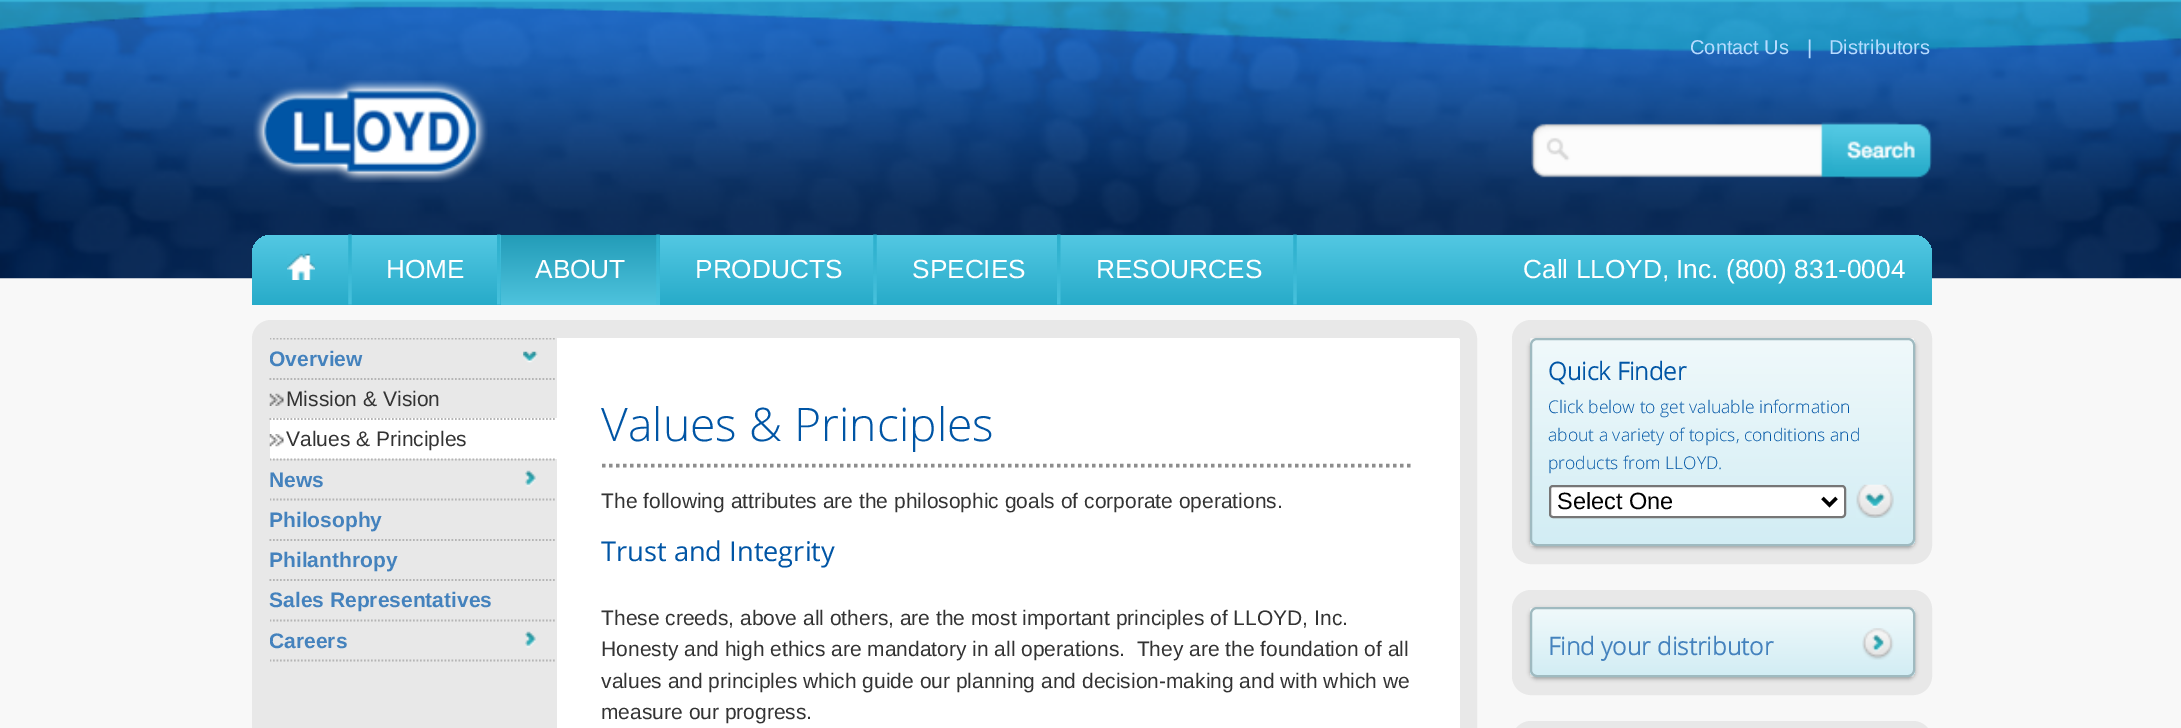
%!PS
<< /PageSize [2181 728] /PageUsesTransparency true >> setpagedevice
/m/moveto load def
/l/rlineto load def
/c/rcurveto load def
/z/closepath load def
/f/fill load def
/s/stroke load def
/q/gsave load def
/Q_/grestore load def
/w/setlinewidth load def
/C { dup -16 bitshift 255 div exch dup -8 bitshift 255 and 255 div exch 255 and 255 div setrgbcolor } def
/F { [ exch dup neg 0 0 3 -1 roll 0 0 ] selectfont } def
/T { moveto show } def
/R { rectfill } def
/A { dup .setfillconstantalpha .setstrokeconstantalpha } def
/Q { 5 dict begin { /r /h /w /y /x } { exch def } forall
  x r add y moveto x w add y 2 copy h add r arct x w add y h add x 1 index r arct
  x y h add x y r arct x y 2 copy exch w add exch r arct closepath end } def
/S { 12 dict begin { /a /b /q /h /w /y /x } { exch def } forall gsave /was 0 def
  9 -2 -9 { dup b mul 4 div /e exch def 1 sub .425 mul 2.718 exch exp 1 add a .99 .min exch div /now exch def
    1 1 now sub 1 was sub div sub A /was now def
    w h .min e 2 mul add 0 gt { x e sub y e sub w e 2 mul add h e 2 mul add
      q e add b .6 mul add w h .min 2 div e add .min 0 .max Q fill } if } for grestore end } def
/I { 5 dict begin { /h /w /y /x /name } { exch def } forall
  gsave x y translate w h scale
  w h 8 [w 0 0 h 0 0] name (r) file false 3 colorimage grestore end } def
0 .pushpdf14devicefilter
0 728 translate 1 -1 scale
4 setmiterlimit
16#F8F8F8 C
0 0 2181 728 R
(1.rgb) 0 0 2181 279 I
/LiberationSans-Regular 20 F
16#B7DBFF C
(Contact Us) 1690 54 T
(|) 1807 54 T
(Distributors) 1829 54 T
(2.rgb) 253 80 235 103 I
(3.rgb) 1531 122 401 57 I
q 271 235 m 1642 0 l 10.5 0 19 8.5 19 19 c 0 51 l -1680 0 l 0 -51 l 0 -10.5 8.5 -19 19 -19 c z clip newpath
<< /ShadingType 2 /ColorSpace /DeviceRGB /Coords [252 305 252 235] /Extend [true true] /Function << /FunctionType 2 /Domain [0 1] /C0 [.153 .671 .788] /C1 [.325 .784 .89] /N 1 >> >> shfill Q_
(4.rgb) 348 234 4 71 I
(5.rgb) 287 253 28 27 I
(6.rgb) 497 234 4 71 I
/LiberationSans-Regular 26.25 F
16#FFFFFF C
(HOME) 386 278 T
q 501 235 m 159 0 l 0 70 l -159 0 l z clip newpath
<< /ShadingType 2 /ColorSpace /DeviceRGB /Coords [501 305 501 235] /Extend [true true] /Function << /FunctionType 2 /Domain [0 1] /C0 [.306 .765 .867] /C1 [.137 .612 .722] /N 1 >> >> shfill Q_
(7.rgb) 656 234 4 71 I
(ABOUT) 535 278 T
(8.rgb) 873 234 4 71 I
(PRODUCTS) 695 278 T
(9.rgb) 1057 234 4 71 I
(SPECIES) 912 278 T
(10.rgb) 1293 234 4 71 I
(RESOURCES) 1096 278 T
(Call LLOYD, Inc. \(800\) 831-0004) 1523 278 T
16#E8E8E8 C
270 338 1190 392 2 Q f
18 w
261 329 1207 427 10 Q s
q
270 338 1190 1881 2 Q clip newpath
16#B5B5B5 C
1.8 w
[1.75 1.75] 0 setdash
269.5 338.5 m 287 0 l s
/LiberationSans-Bold 21 F
16#4482BD C
(Overview) 269 366 T
Q_
(11.rgb) 523 351 15 12 I
(12.rgb) 269 393 15 13 I
16#B5B5B5 C
1.8 w
[1.75 1.75] 0 setdash
269.5 379 m 287 0 l s
/LiberationSans-Regular 21 F
16#333333 C
(Mission & Vision) 286 406 T
16#FFFFFF C
270 418 287 41 R
(13.rgb) 269 434 15 13 I
16#B5B5B5 C
269.5 419 m 287 0 l s
16#333333 C
(Values & Principles) 286 446 T
q
270 338 1190 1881 2 Q clip newpath
16#B5B5B5 C
269.5 459.5 m 287 0 l s
Q_
/LiberationSans-Bold 21 F
16#4482BD C
(News) 269 487 T
(14.rgb) 525 470 11 17 I
q
270 338 1190 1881 2 Q clip newpath
16#B5B5B5 C
269.5 499.5 m 287 0 l s
Q_
(Philosophy) 269 527 T
16#B5B5B5 C
269.5 540 m 287 0 l s
16#4482BD C
(Philanthropy) 269 567 T
16#B5B5B5 C
269.5 580 m 287 0 l s
16#4482BD C
(Sales Representatives) 269 607 T
q
270 338 1190 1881 2 Q clip newpath
16#B5B5B5 C
269.5 620.5 m 287 0 l s
269.5 660.5 m 287 0 l s
16#4482BD C
(Careers) 269 648 T
Q_
(14.rgb) 525 631 11 17 I
16#FFFFFF C
557 338 m 901 0 l 1 0 2 1 2 2 c 0 388 l 0 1 -1 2 -2 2 c -901 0 l z f
16#8D8D8D C
3.5 w
[3.5 3.5] 0 setdash
602 465.5 m 812 0 l s
/OpenSans-Light 46.25 F
16#0055A5 C
(Values & Principles) 601 441 T
/LiberationSans-Regular 21 F
16#333333 C
(The following attributes are the philosophic goals of corporate operations.) 601 508 T
/OpenSans-Regular 27.25 F
16#0055A5 C
(Trust and Integrity) 601 561 T
/LiberationSans-Regular 21 F
16#333333 C
(These creeds, above all others, are the most important principles of LLOYD, Inc.) 601 625 T
(Honesty and high ethics are mandatory in all operations.  They are the foundation of all) 601 656 T
(values and principles which guide our planning and decision-making and with which we) 601 688 T
(measure our progress.) 601 719 T
16#FFFFFF C
1521 329 402 226 10 Q q f Q_
16#E8E8E8 C
18 w
[] 0 setdash
s
16#000000 C
1530 340 385 208 7 2 .3 S
q
1530 338 385 208 7 Q clip newpath
q 1530 340 m 385 0 l 0 204 l -385 0 l z clip newpath
<< /ShadingType 2 /ColorSpace /DeviceRGB /Coords [1531 544 1531 340] /Extend [true true] /Function << /FunctionType 2 /Domain [0 1] /C0 [.824 .929 .957] /C1 [.941 .976 .984] /N 1 >> >> shfill Q_
Q_
16#9FBAC0 C
2 w
1531 339 383 206 6 Q s
/OpenSans-Bold 24.5 F
16#0055A5 C
(Quick Finder) 1548 380 T
/OpenSans-Light 17.5 F
(Click below to get valuable information) 1548 413 T
(about a variety of topics, conditions and) 1548 441 T
(products from LLOYD.) 1548 469 T
(15.rgb) 1856 484 38 34 I
16#FFFFFF C
1550 486 295 31 3 Q q f Q_
16#767676 C
s
16#000000 C
3.5 w
1822.5 498 m 7 7 l 7 -7 l s
/LiberationSans-Regular 23.5 F
(Select One) 1557 509 T
16#FFFFFF C
1521 599 402 87 10 Q q f Q_
16#E8E8E8 C
18 w
s
16#000000 C
1530 609 385 70 7 2 .3 S
q
1530 607 385 70 7 Q clip newpath
q 1530 609 m 385 0 l 0 67 l -385 0 l z clip newpath
<< /ShadingType 2 /ColorSpace /DeviceRGB /Coords [1531 676 1531 609] /Extend [true true] /Function << /FunctionType 2 /Domain [0 1] /C0 [.824 .929 .957] /C1 [.941 .976 .984] /N 1 >> >> shfill Q_
Q_
16#9FBAC0 C
2 w
1531 608 383 68 6 Q s
(16.rgb) 1862 628 32 32 I
/OpenSans-Bold 24.5 F
16#4482BD C
(Find your distributor) 1548 655 T
16#E8E8E8 C
18 w
1521 730 402 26 10 Q s
.poppdf14devicefilter showpage
